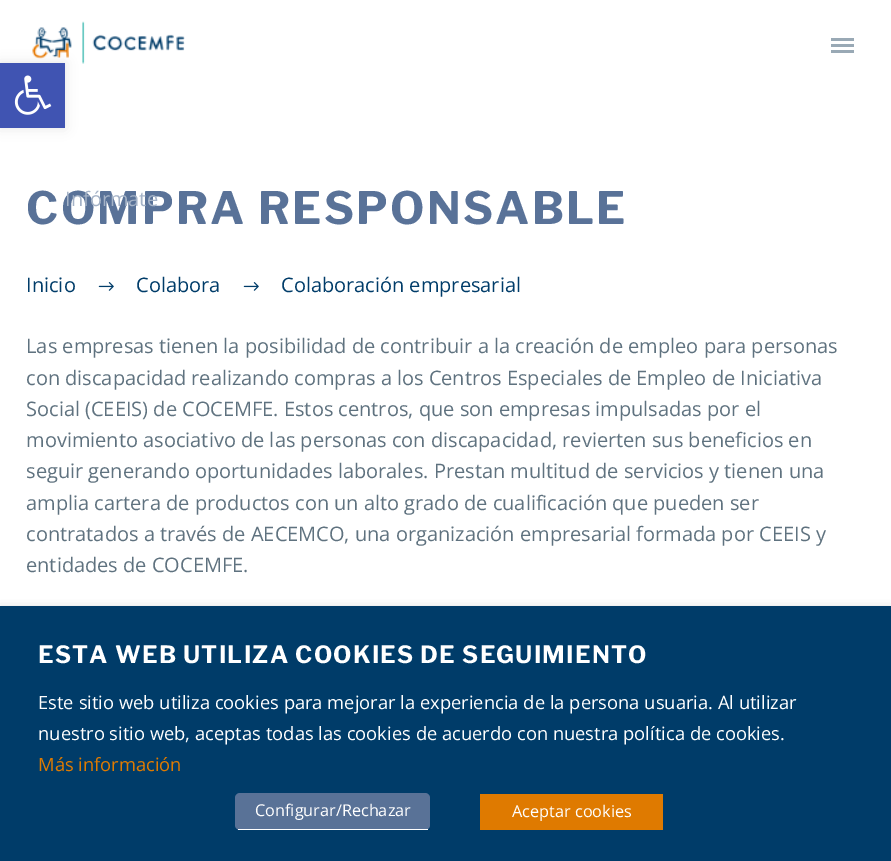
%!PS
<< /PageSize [891 861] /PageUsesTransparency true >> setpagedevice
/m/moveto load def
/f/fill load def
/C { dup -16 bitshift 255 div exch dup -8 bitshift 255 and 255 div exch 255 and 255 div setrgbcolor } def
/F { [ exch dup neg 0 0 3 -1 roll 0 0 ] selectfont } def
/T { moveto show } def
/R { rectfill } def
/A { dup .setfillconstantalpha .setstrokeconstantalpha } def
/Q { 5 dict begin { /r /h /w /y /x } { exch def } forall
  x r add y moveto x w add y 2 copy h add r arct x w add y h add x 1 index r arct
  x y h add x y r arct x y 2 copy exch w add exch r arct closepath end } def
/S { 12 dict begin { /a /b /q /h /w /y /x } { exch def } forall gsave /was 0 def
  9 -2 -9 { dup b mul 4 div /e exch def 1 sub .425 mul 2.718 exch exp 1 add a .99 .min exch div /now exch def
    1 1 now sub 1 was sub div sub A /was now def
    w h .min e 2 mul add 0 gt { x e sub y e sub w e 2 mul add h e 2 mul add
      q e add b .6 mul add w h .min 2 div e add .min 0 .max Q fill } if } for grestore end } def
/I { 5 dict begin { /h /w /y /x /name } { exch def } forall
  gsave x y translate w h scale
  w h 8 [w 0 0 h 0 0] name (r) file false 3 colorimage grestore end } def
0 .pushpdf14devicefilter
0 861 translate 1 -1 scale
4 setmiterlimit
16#FFFFFF C
0 0 891 861 R
(3.rgb) 32 21 153 43 I
16#000000 C
0 63 65 65 0 6 .1 S
16#4054B2 C
0 63 65 65 R
(1.rgb) 14 75 38 40 I
/LibreFranklin-Bold 44.5 F
16#597298 C
26 224 m 2.25 0 (COMPRA RESPONSABLE) ashow
/OpenSans-Regular 20 F
16#003C69 C
(Inicio) 26 292 T
(2.rgb) 98 282 16 9 I
(Colabora) 136 292 T
(2.rgb) 243 282 16 9 I
(Colaboración empresarial) 281 292 T
16#5F727F C
(Las empresas tienen la posibilidad de contribuir a la creación de empleo para personas) 26 353 T
(con discapacidad realizando compras a los Centros Especiales de Empleo de Iniciativa) 26 385 T
(Social \(CEEIS\) de COCEMFE. Estos centros, que son empresas impulsadas por el) 26 416 T
(movimiento asociativo de las personas con discapacidad, revierten sus beneficios en) 26 447 T
(seguir generando oportunidades laborales. Prestan multitud de servicios y tienen una) 26 478 T
(amplia cartera de productos con un alto grado de cualificación que pueden ser) 26 510 T
(contratados a través de AECEMCO, una organización empresarial formada por CEEIS y) 26 541 T
(entidades de COCEMFE.) 26 572 T
16#99A9B5 C
831 38 23 3 R
831 44 23 3 R
831 50 23 3 R
16#A5B3C7 C
(Infórmate) 65 206 T
16#000000 C
0 613 891 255 0 6 .5 S
16#003C69 C
0 606 891 255 R
/LibreFranklin-Bold 23.75 F
16#FFFFFF C
38 663 m 1.2 0 (ESTA WEB UTILIZA COOKIES DE SEGUIMIENTO) ashow
/OpenSans-Regular 18.35 F
(Este sitio web utiliza cookies para mejorar la experiencia de la persona usuaria. Al utilizar) 38 709 T
(nuestro sitio web, aceptas todas las cookies de acuerdo con nuestra política de cookies.) 38 740 T
16#DF7A00 C
(Más información) 38 771 T
16#597297 C
235 793 195 37 5 Q f
16#FFFFFF C
238 829 190 1 R
/OpenSans-Regular 16.25 F
(Configurar/Rechazar) 255 816 T
16#DF7A00 C
480 794 183 36 R
16#FFFFFF C
(Aceptar cookies) 512 817 T
.poppdf14devicefilter showpage
